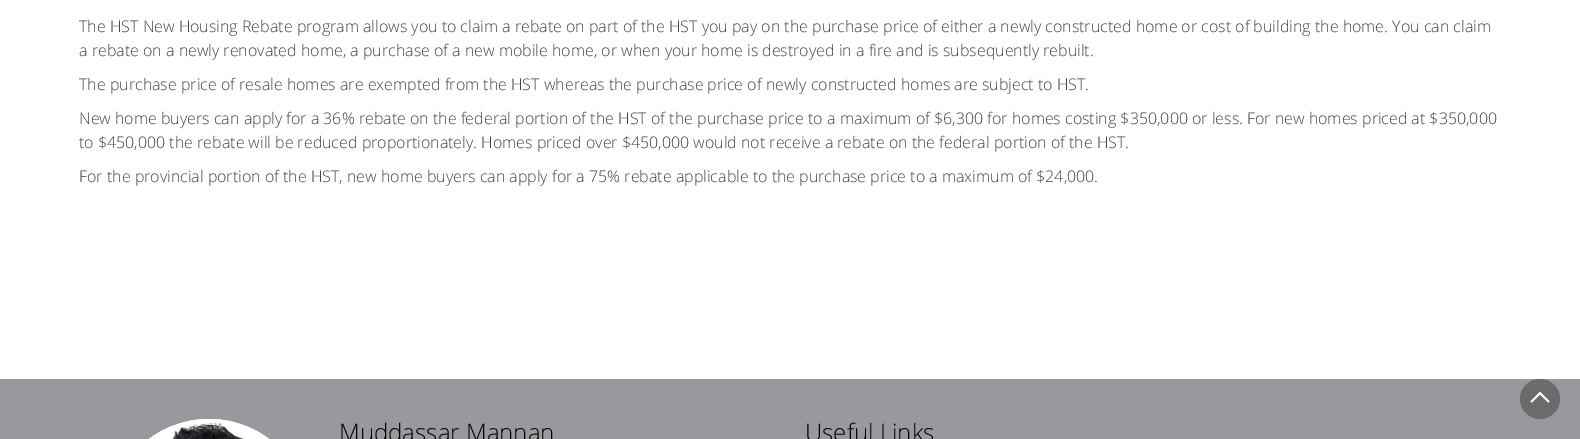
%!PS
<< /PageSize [1580 439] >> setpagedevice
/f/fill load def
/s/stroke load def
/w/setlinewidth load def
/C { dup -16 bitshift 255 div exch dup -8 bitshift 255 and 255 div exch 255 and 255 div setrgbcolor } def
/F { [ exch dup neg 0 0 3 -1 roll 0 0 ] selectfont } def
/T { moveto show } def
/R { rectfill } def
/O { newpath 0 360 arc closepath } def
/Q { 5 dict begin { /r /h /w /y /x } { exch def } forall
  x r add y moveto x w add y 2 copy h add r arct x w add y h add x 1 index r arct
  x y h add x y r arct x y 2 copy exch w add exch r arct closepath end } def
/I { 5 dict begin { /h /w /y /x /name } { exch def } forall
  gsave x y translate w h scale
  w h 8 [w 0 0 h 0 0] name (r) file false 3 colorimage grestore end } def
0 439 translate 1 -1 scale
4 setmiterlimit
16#FFFFFF C
0 0 1580 439 R
/OpenSans-Light 16 F
16#444444 C
(The HST New Housing Rebate program allows you to claim a rebate on part of the HST you pay on the purchase price of either a newly constructed home or cost of building the home. You can claim) 79 32 T
(a rebate on a newly renovated home, a purchase of a new mobile home, or when your home is destroyed in a fire and is subsequently rebuilt.) 79 56 T
(The purchase price of resale homes are exempted from the HST whereas the purchase price of newly constructed homes are subject to HST.) 79 90 T
(New home buyers can apply for a 36% rebate on the federal portion of the HST of the purchase price to a maximum of $6,300 for homes costing $350,000 or less. For new homes priced at $350,000) 79 124 T
(to $450,000 the rebate will be reduced proportionately. Homes priced over $450,000 would not receive a rebate on the federal portion of the HST.) 79 148 T
(For the provincial portion of the HST, new home buyers can apply for a 75% rebate applicable to the purchase price to a maximum of $24,000.) 79 182 T
16#99989C C
0 379 1580 60 R
16#FFFFFF C
109 419 200 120 100 Q f
(1.rgb) 172 422 72 17 I
3 w
110.5 420.5 197 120 98.5 Q s
(2.rgb) 172 422 72 17 I
/OpenSans-Light 24 F
16#000000 C
(Muddassar Mannan) 339 441 T
(Useful Links) 805 441 T
16#6B6A6D C
1540 399 20 O f
(3.rgb) 1530 391 20 12 I
showpage
